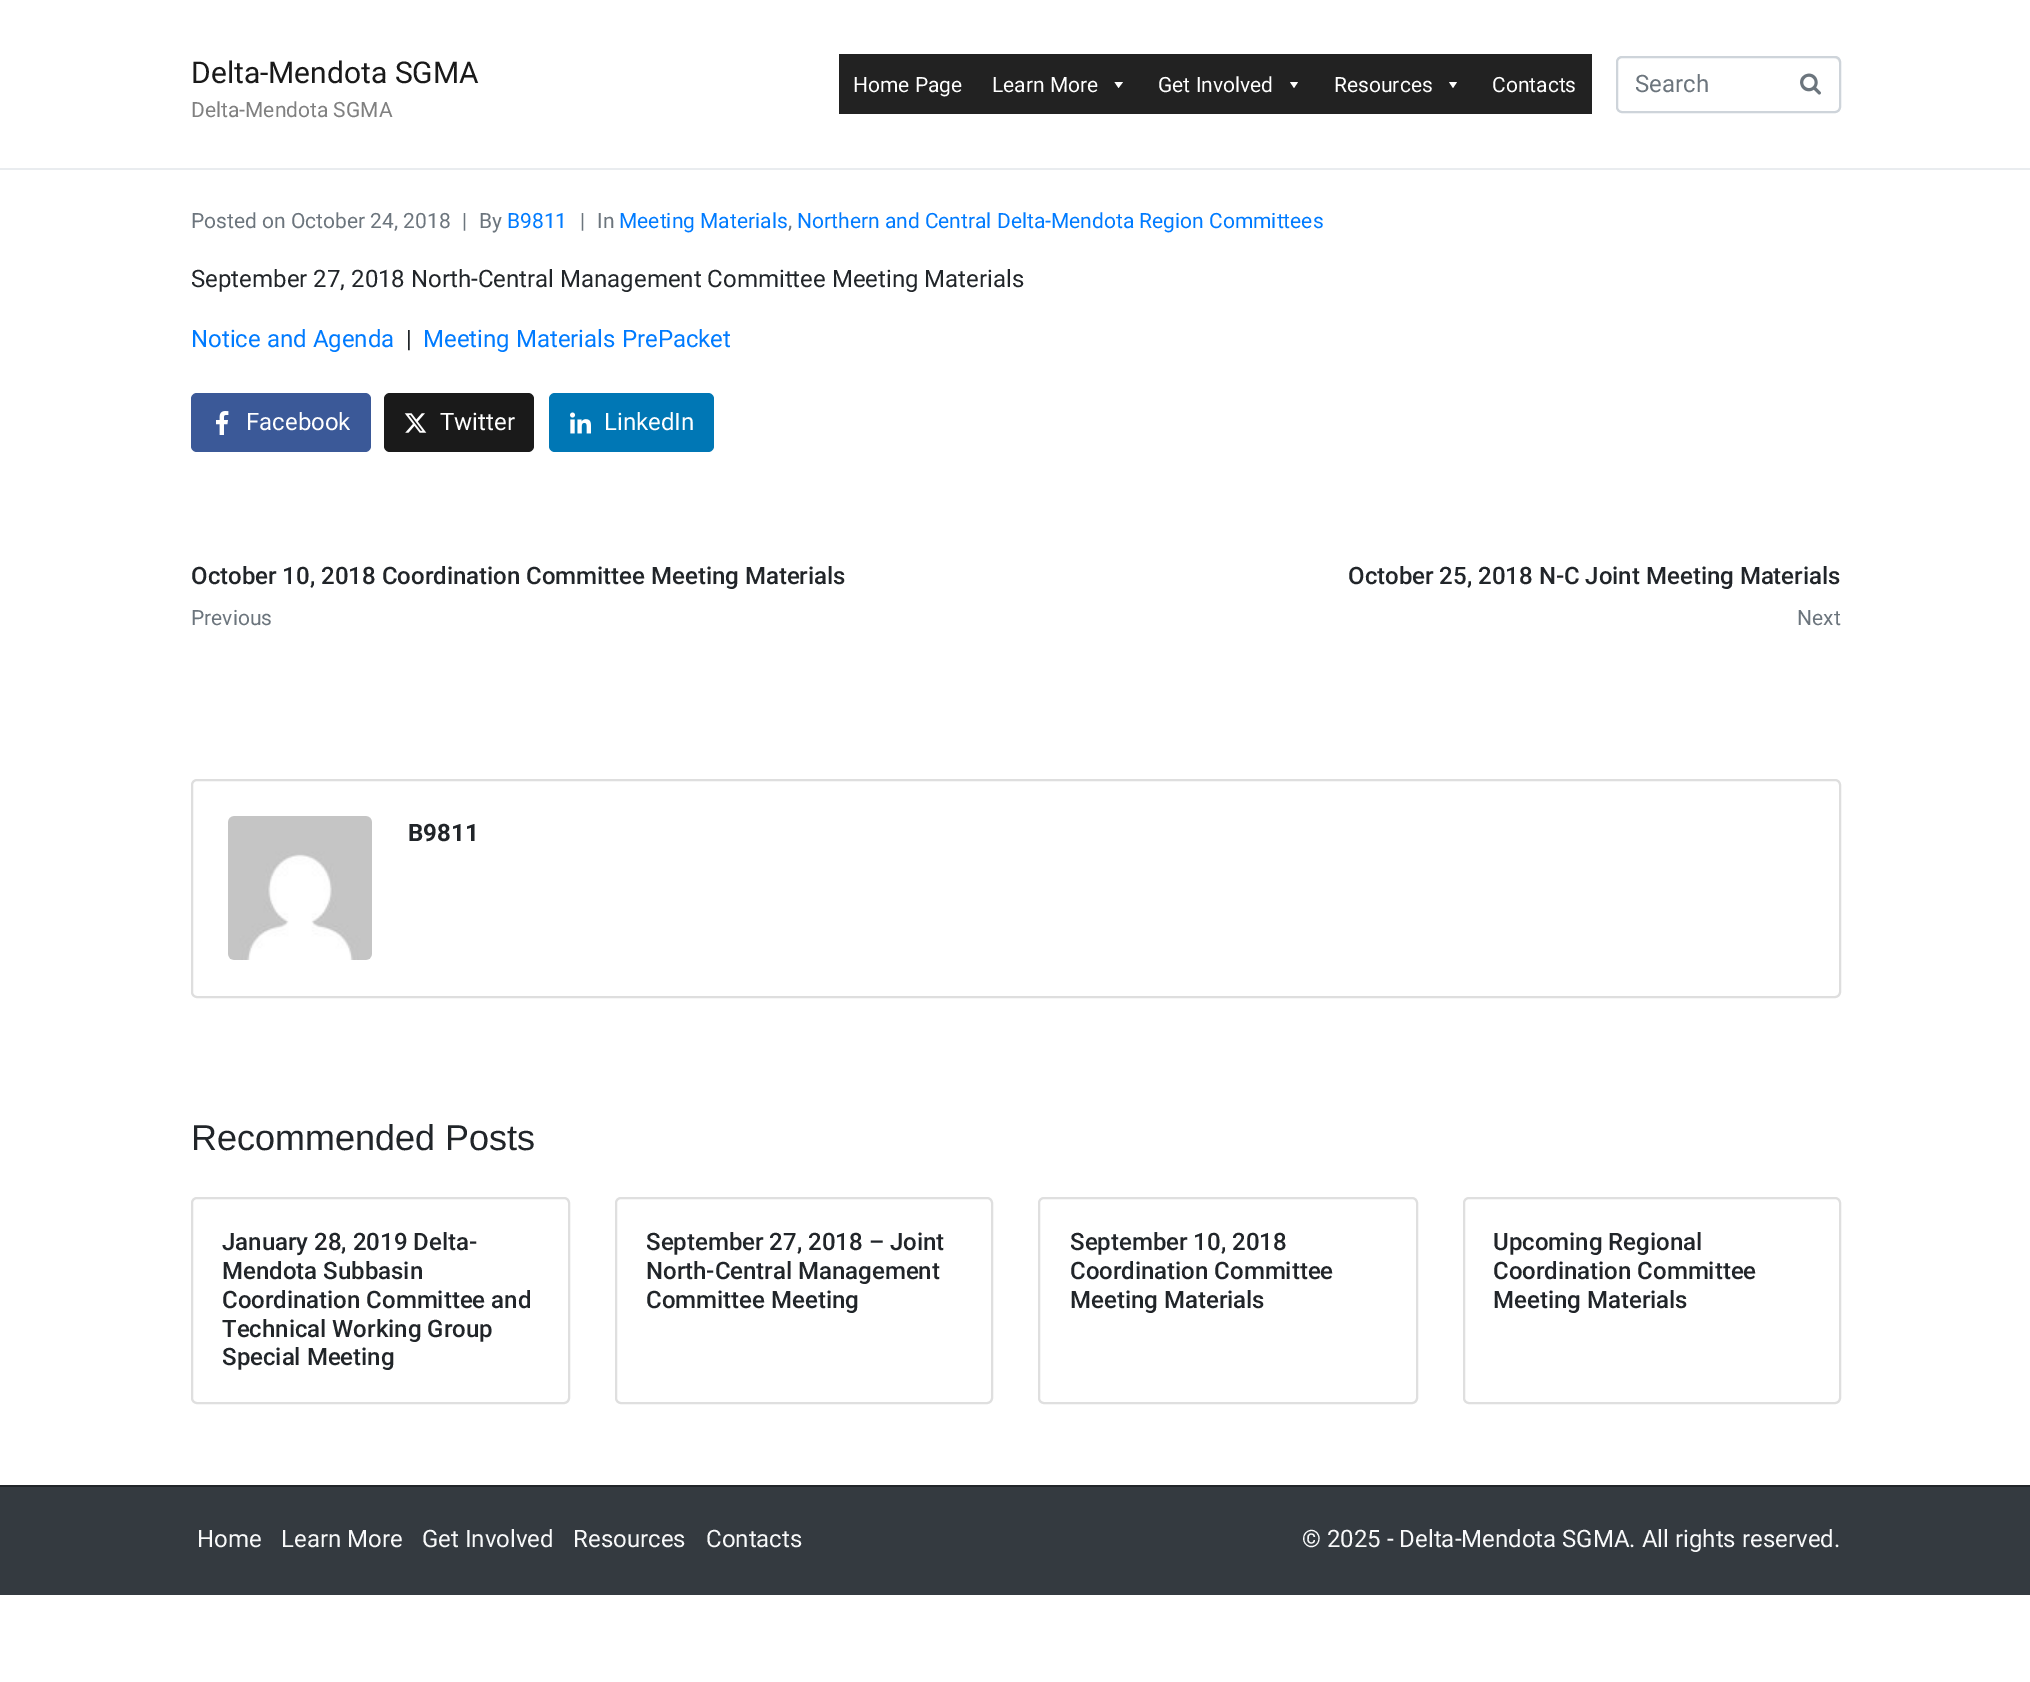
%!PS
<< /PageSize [2030 1682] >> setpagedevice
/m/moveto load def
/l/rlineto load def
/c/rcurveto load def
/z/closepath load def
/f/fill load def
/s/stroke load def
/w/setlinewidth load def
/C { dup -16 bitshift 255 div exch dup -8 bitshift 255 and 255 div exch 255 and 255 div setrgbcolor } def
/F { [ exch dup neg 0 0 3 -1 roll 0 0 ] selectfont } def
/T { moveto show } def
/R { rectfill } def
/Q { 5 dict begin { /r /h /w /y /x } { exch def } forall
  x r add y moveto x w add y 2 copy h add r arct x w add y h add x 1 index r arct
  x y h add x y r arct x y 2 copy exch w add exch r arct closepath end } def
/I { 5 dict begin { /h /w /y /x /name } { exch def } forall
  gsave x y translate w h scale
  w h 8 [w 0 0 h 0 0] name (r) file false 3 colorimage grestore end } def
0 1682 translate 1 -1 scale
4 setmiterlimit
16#FFFFFF C
0 0 2030 1682 R
16#E9ECEF C
0 168 2030 2 R
/Roboto-Regular 30 F
16#1A1A1A C
(Delta-Mendota SGMA) 191 83 T
/Roboto-Regular 21 F
16#808080 C
(Delta-Mendota SGMA) 191 117 T
16#222222 C
839 54 753 60 R
16#FFFFFF C
(Home Page) 853 92 T
(Learn More) 992 92 T
1123 82 m -4.5 6 l -4 -6 l z f
(Get Involved) 1158 92 T
1298 82 m -4 6 l -4 -6 l z f
(Resources) 1334 92 T
1457 82 m -4 6 l -4 -6 l z f
(Contacts) 1492 92 T
16#ECECEC C
1622 58 m 212 0 l 3 0 5 3 5 5 c 0 -1 l 0 -3 -2 -5 -5 -5 c -212 0 l -3 0 -5 2 -5 5 c 0 1 l 0 -2 2 -5 5 -5 c z f
16#CED4DA C
2 w
1617 57 223 55 5 Q s
/Roboto-Regular 24 F
16#6C757D C
(Search) 1635 92 T
(1.rgb) 1800 73 21 22 I
/Roboto-Regular 21 F
(Posted on October 24, 2018) 191 228 T
(|) 462 228 T
(By) 479 228 T
16#007BFF C
(B9811) 507 228 T
16#6C757D C
(|) 580 228 T
(In) 597 228 T
16#007BFF C
(Meeting Materials) 619 228 T
16#6C757D C
(,) 788 228 T
16#007BFF C
(Northern and Central Delta-Mendota Region Committees) 797 228 T
/Roboto-Regular 24 F
16#212529 C
(September 27, 2018 North-Central Management Committee Meeting Materials) 191 287 T
16#007BFF C
(Notice and Agenda) 191 347 T
16#212529 C
(|) 406 347 T
16#007BFF C
(Meeting Materials PrePacket) 423 347 T
16#3B5998 C
191 393 180 59 6 Q f
(2.rgb) 216 411 13 24 I
16#FFFFFF C
(Facebook) 246 430 T
16#1A1A1A C
384 393 150 59 6 Q f
(3.rgb) 404 413 23 20 I
16#FFFFFF C
(Twitter) 440 430 T
16#0077B5 C
549 393 165 59 6 Q f
(4.rgb) 570 412 21 22 I
16#FFFFFF C
(LinkedIn) 604 430 T
/Roboto-Medium 24 F
16#212529 C
(October 10, 2018 Coordination Committee Meeting Materials) 191 584 T
/Roboto-Regular 21 F
16#6C757D C
(Previous) 191 625 T
/Roboto-Medium 24 F
16#212529 C
(October 25, 2018 N-C Joint Meeting Materials) 1348 584 T
/Roboto-Regular 21 F
16#6C757D C
(Next) 1797 625 T
16#DEDEDE C
192 780 1648 217 5 Q s
(5.rgb) 228 816 144 144 I
/Roboto-Bold 24 F
16#212529 C
(B9811) 408 841 T
/LiberationSans-Regular 36 F
(Recommended Posts) 191 1150 T
16#DFDFDF C
192 1198 377 205 5 Q s
/Roboto-Medium 24 F
16#212529 C
(January 28, 2019 Delta-) 222 1250 T
(Mendota Subbasin) 222 1279 T
(Coordination Committee and) 222 1308 T
(Technical Working Group) 222 1337 T
(Special Meeting) 222 1365 T
16#DFDFDF C
616 1198 376 205 5 Q s
16#212529 C
(September 27, 2018 – Joint) 646 1250 T
(North-Central Management) 646 1279 T
(Committee Meeting) 646 1308 T
16#DFDFDF C
1039 1198 378 205 5 Q s
16#212529 C
(September 10, 2018) 1070 1250 T
(Coordination Committee) 1070 1279 T
(Meeting Materials) 1070 1308 T
16#DFDFDF C
1464 1198 376 205 5 Q s
16#212529 C
(Upcoming Regional) 1493 1250 T
(Coordination Committee) 1493 1279 T
(Meeting Materials) 1493 1308 T
16#343A40 C
0 1487 2030 108 R
16#212529 C
0 1485 2030 2 R
/Roboto-Regular 24 F
16#F8F9FA C
(Home) 197 1547 T
(Learn More) 281 1547 T
(Get Involved) 422 1547 T
(Resources) 573 1547 T
(Contacts) 706 1547 T
(© 2025 - Delta-Mendota SGMA. All rights reserved.) 1302 1547 T
showpage
